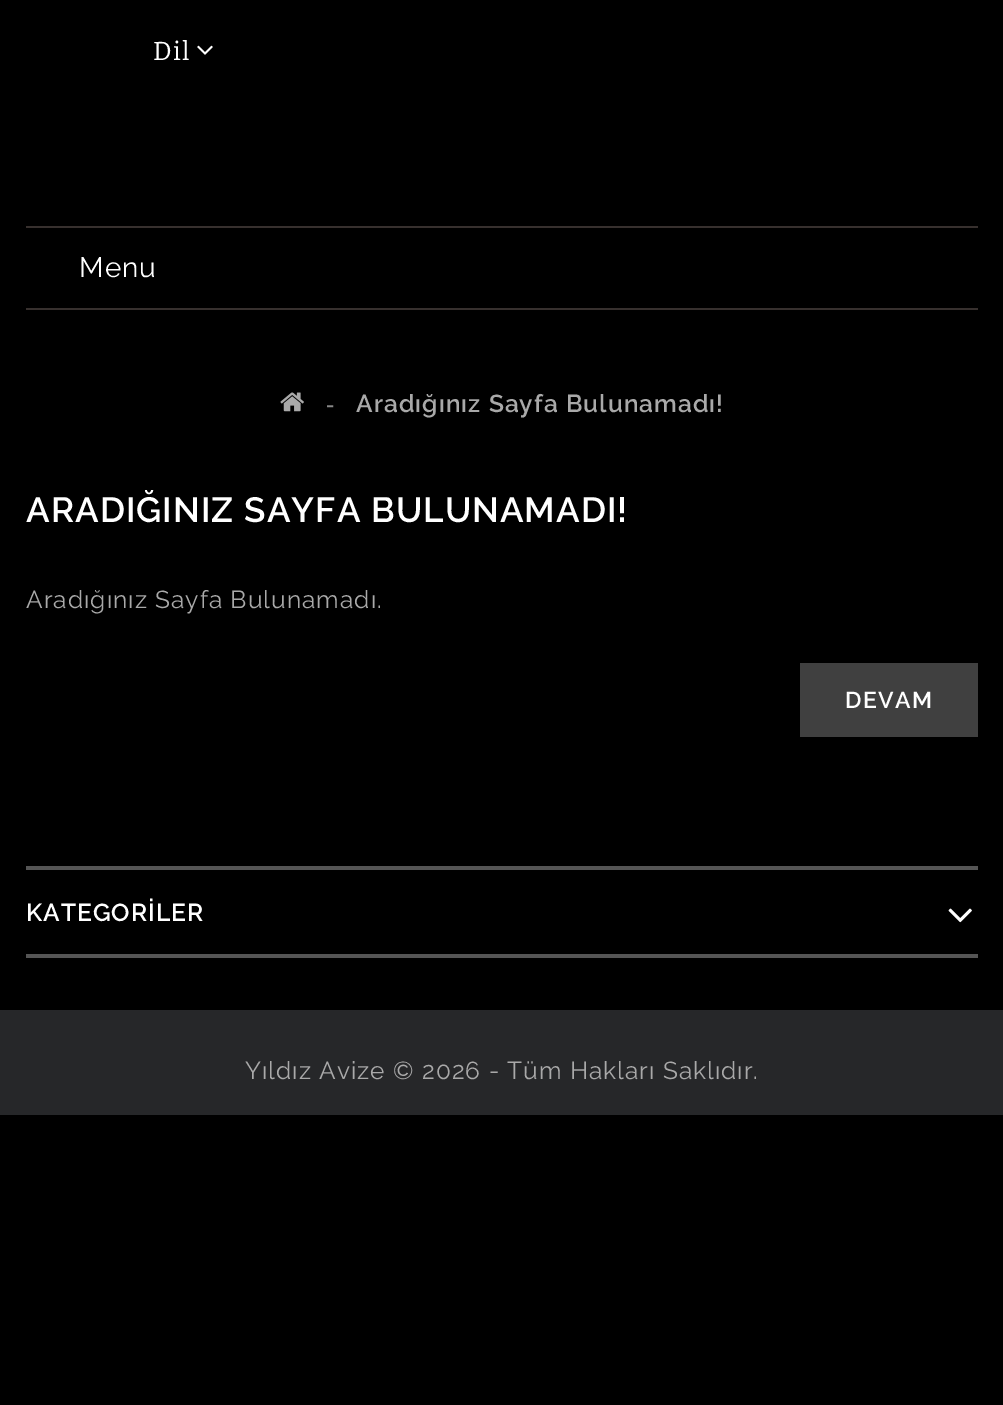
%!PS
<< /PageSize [1003 1405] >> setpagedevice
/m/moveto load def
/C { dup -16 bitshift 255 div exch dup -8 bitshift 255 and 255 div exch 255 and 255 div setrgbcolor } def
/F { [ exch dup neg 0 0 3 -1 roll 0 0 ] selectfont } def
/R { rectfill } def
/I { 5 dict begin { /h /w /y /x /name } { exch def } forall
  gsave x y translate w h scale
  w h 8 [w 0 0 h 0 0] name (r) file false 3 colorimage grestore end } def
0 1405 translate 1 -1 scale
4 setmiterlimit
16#000000 C
0 0 1003 1405 R
16#37302E C
26 226 952 2 R
/Bitter-Regular 26 F
16#FFFFFF C
153 60 m 1.05 0 (Dil) ashow
(1.rgb) 197 45 16 10 I
/Raleway-Regular 28 F
79 277 m 1.05 0 (Menu) ashow
16#37302E C
26 308 952 2 R
(2.rgb) 280 392 24 20 I
/LiberationSerif-Regular 24.5 F
16#888888 C
326 412 m 1.05 0 (-) ashow
/Raleway-SemiBold 24.5 F
16#A9A9A9 C
356 412 m 1.05 0 (Aradığınız Sayfa Bulunamadı!) ashow
/Raleway-SemiBold 35 F
16#FFFFFF C
26 522 m 1.05 0 (ARADIĞINIZ SAYFA BULUNAMADI!) ashow
/Raleway-Regular 24.5 F
16#A9A9A9 C
26 608 m 1.05 0 (Aradığınız Sayfa Bulunamadı.) ashow
16#404040 C
800 663 178 74 R
/Raleway-SemiBold 23 F
16#FFFFFF C
845 708 m 1.5 0 (DEVAM) ashow
16#555555 C
26 866 952 4 R
26 954 952 4 R
/Raleway-SemiBold 24.5 F
16#FFFFFF C
26 921 m 1.05 0 (KATEGORİLER) ashow
(3.rgb) 948 908 24 15 I
16#262729 C
0 1010 1003 105 R
/Raleway-Regular 24.5 F
16#A9A9A9 C
245 1079 m 1.05 0 (Yıldız Avize © 2026 - Tüm Hakları Saklıdır.) ashow
showpage
